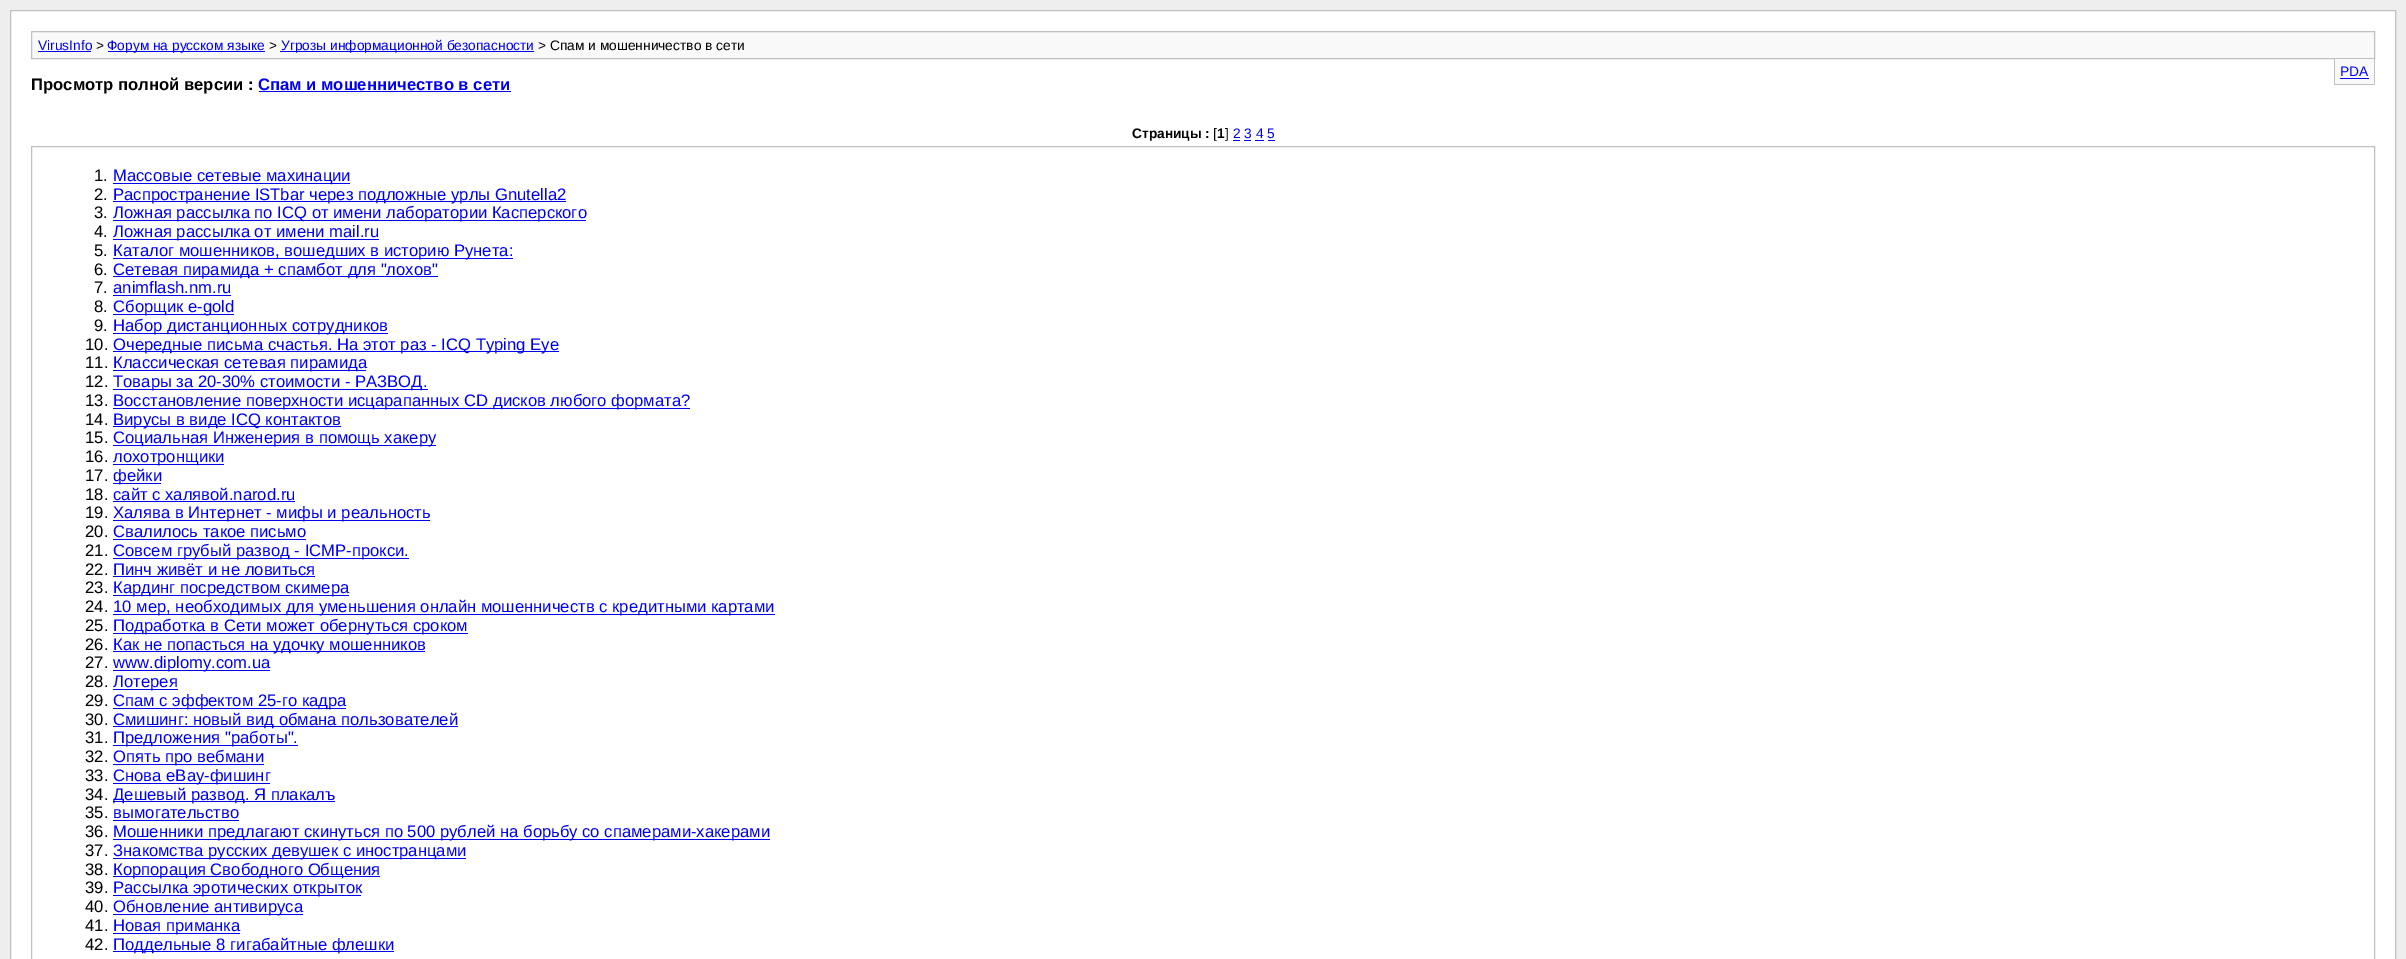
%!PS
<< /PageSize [2406 959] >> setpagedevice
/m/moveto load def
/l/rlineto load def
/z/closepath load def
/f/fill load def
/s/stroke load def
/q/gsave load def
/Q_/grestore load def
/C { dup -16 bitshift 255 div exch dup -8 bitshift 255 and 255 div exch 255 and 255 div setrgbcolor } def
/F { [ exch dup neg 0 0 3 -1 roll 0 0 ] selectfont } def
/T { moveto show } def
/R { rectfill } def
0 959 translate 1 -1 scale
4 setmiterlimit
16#EEEEEE C
0 0 2406 959 R
16#FFFFFF C
10.5 10.5 m 2385 0 l 0 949 l -2385 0 l z q f Q_
16#C0C0C0 C
s
16#F9F9F9 C
31.5 31.5 m 2343 0 l 0 27 l -2343 0 l z q f Q_
16#C0C0C0 C
s
/LiberationSans-Regular 13.75 F
16#0000EE C
(VirusInfo) 38 50 T
38 51 53 1 R
16#000000 C
(>) 96 50 T
16#0000EE C
108 51 157 1 R
(Форум на русском языке) 107 50 T
16#000000 C
(>) 269 50 T
16#0000EE C
280 51 254 1 R
(Угрозы информационной безопасности) 281 50 T
16#000000 C
(> Спам и мошенничество в сети) 538 50 T
16#F9F9F9 C
2335 59 39 25 R
16#C0C0C0 C
2374 59 1 26 R
2334 84 41 1 R
2334 59 1 26 R
16#0000EE C
(PDA) 2340 76 T
2340 78 29 1 R
/LiberationSans-Bold 16.65 F
16#000000 C
(Просмотр полной версии :) 31 90 T
16#0000EE C
(Спам и мошенничество в сети) 258 90 T
259 91 252 1 R
/LiberationSans-Bold 13.75 F
16#000000 C
(Страницы :) 1132 138 T
/LiberationSans-Regular 13.75 F
([) 1213 138 T
/LiberationSans-Bold 13.75 F
(1) 1217 138 T
/LiberationSans-Regular 13.75 F
(]) 1225 138 T
16#0000EE C
(2 3 4 5) 1233 138 T
1233 140 7 1 R
1244 140 7 1 R
1255 140 9 1 R
1268 140 7 1 R
16#C0C0C0 C
31.5 146.5 2343 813 rectstroke
/LiberationSans-Regular 16.65 F
16#000000 C
(1.) 94 181 T
16#0000EE C
113 183 237 1 R
(Массовые сетевые махинации) 113 181 T
16#000000 C
(2.) 94 200 T
16#0000EE C
113 201 453 1 R
(Распространение ISTbar через подложные уpлы Gnutella2) 113 200 T
16#000000 C
(3.) 94 218 T
16#0000EE C
113 220 473 1 R
(Ложная рассылка по ICQ от имени лаборатории Касперского) 113 218 T
16#000000 C
(4.) 94 237 T
16#0000EE C
113 239 266 1 R
(Ложная рассылка от имени mail.ru) 113 237 T
16#000000 C
(5.) 94 256 T
16#0000EE C
113 258 400 1 R
(Каталог мошенников, вошедших в историю Рунета:) 113 256 T
16#000000 C
(6.) 94 275 T
16#0000EE C
113 276 325 1 R
(Сетевая пирамида + спамбот для "лохов") 113 275 T
16#000000 C
(7.) 94 293 T
16#0000EE C
(animflash.nm.ru) 113 293 T
113 295 118 1 R
16#000000 C
(8.) 94 312 T
16#0000EE C
113 314 121 1 R
(Сборщик e-gold) 113 312 T
16#000000 C
(9.) 94 331 T
16#0000EE C
113 333 275 1 R
(Набор дистанционных сотрудников) 113 331 T
16#000000 C
(10.) 85 350 T
16#0000EE C
113 351 446 1 R
(Очередные письма счастья. На этот раз - ICQ Typing Eye) 113 350 T
16#000000 C
(11.) 85 368 T
16#0000EE C
113 370 253 1 R
(Классическая сетевая пирамида) 113 368 T
16#000000 C
(12.) 85 387 T
16#0000EE C
113 389 315 1 R
(Товары за 20-30% стоимости - РАЗВОД.) 113 387 T
16#000000 C
(13.) 85 406 T
16#0000EE C
113 408 577 1 R
(Восстановление поверхности исцарапанных CD дисков любого формата?) 113 406 T
16#000000 C
(14.) 85 425 T
16#0000EE C
113 426 228 1 R
(Вирусы в виде ICQ контактов) 113 425 T
16#000000 C
(15.) 85 443 T
16#0000EE C
113 445 323 1 R
(Социальная Инженерия в помощь хакеру) 113 443 T
16#000000 C
(16.) 85 462 T
16#0000EE C
113 464 111 1 R
(лохотронщики) 113 462 T
16#000000 C
(17.) 85 481 T
16#0000EE C
113 483 48 1 R
(фейки) 113 481 T
16#000000 C
(18.) 85 500 T
16#0000EE C
(сайт с халявой.narod.ru) 113 500 T
113 501 182 1 R
16#000000 C
(19.) 85 518 T
16#0000EE C
113 520 317 1 R
(Халява в Интернет - мифы и реальность) 113 518 T
16#000000 C
(20.) 85 537 T
16#0000EE C
(Свалилось такое письмо) 113 537 T
113 539 193 1 R
16#000000 C
(21.) 85 556 T
16#0000EE C
113 558 296 1 R
(Совсем грубый развод - ICMP-прокси.) 113 556 T
16#000000 C
(22.) 85 575 T
16#0000EE C
(Пинч живёт и не ловиться) 113 575 T
113 576 202 1 R
16#000000 C
(23.) 85 593 T
16#0000EE C
113 595 236 1 R
(Кардинг посредством скимера) 113 593 T
16#000000 C
(24.) 85 612 T
16#0000EE C
113 614 662 1 R
(10 мер, необходимых для уменьшения онлайн мошенничеств с кредитными картами) 113 612 T
16#000000 C
(25.) 85 631 T
16#0000EE C
113 633 355 1 R
(Подработка в Сети может обернуться сроком) 113 631 T
16#000000 C
(26.) 85 650 T
16#0000EE C
113 651 312 1 R
(Как не попасться на удочку мошенников) 113 650 T
16#000000 C
(27.) 85 668 T
16#0000EE C
113 670 157 1 R
(www.diplomy.com.ua) 113 668 T
16#000000 C
(28.) 85 687 T
16#0000EE C
113 689 65 1 R
(Лотерея) 113 687 T
16#000000 C
(29.) 85 706 T
16#0000EE C
113 708 233 1 R
(Спам с эффектом 25-го кадра) 113 706 T
16#000000 C
(30.) 85 725 T
16#0000EE C
113 726 345 1 R
(Смишинг: новый вид обмана пользователей) 113 725 T
16#000000 C
(31.) 85 743 T
16#0000EE C
113 745 185 1 R
(Предложения "работы".) 113 743 T
16#000000 C
(32.) 85 762 T
16#0000EE C
113 764 151 1 R
(Опять про вебмани) 113 762 T
16#000000 C
(33.) 85 781 T
16#0000EE C
113 783 157 1 R
(Снова eBay-фишинг) 113 781 T
16#000000 C
(34.) 85 800 T
16#0000EE C
113 801 222 1 R
(Дешевый развод. Я плакалъ) 113 800 T
16#000000 C
(35.) 85 818 T
16#0000EE C
(вымогательство) 113 818 T
113 820 126 1 R
16#000000 C
(36.) 85 837 T
16#0000EE C
113 839 657 1 R
(Мошенники предлагают скинуться по 500 рублей на борьбу со спамерами-хакерами) 113 837 T
16#000000 C
(37.) 85 856 T
16#0000EE C
113 858 353 1 R
(Знакомства русских девушек с иностранцами) 113 856 T
16#000000 C
(38.) 85 875 T
16#0000EE C
113 876 267 1 R
(Корпорация Свободного Общения) 113 875 T
16#000000 C
(39.) 85 893 T
16#0000EE C
113 895 248 1 R
(Рассылка эротических открыток) 113 893 T
16#000000 C
(40.) 85 912 T
16#0000EE C
113 914 190 1 R
(Обновление антивируса) 113 912 T
16#000000 C
(41.) 85 931 T
16#0000EE C
113 933 127 1 R
(Новая приманка) 113 931 T
16#000000 C
(42.) 85 950 T
16#0000EE C
113 951 281 1 R
(Поддельные 8 гигабайтные флешки) 113 950 T
showpage
